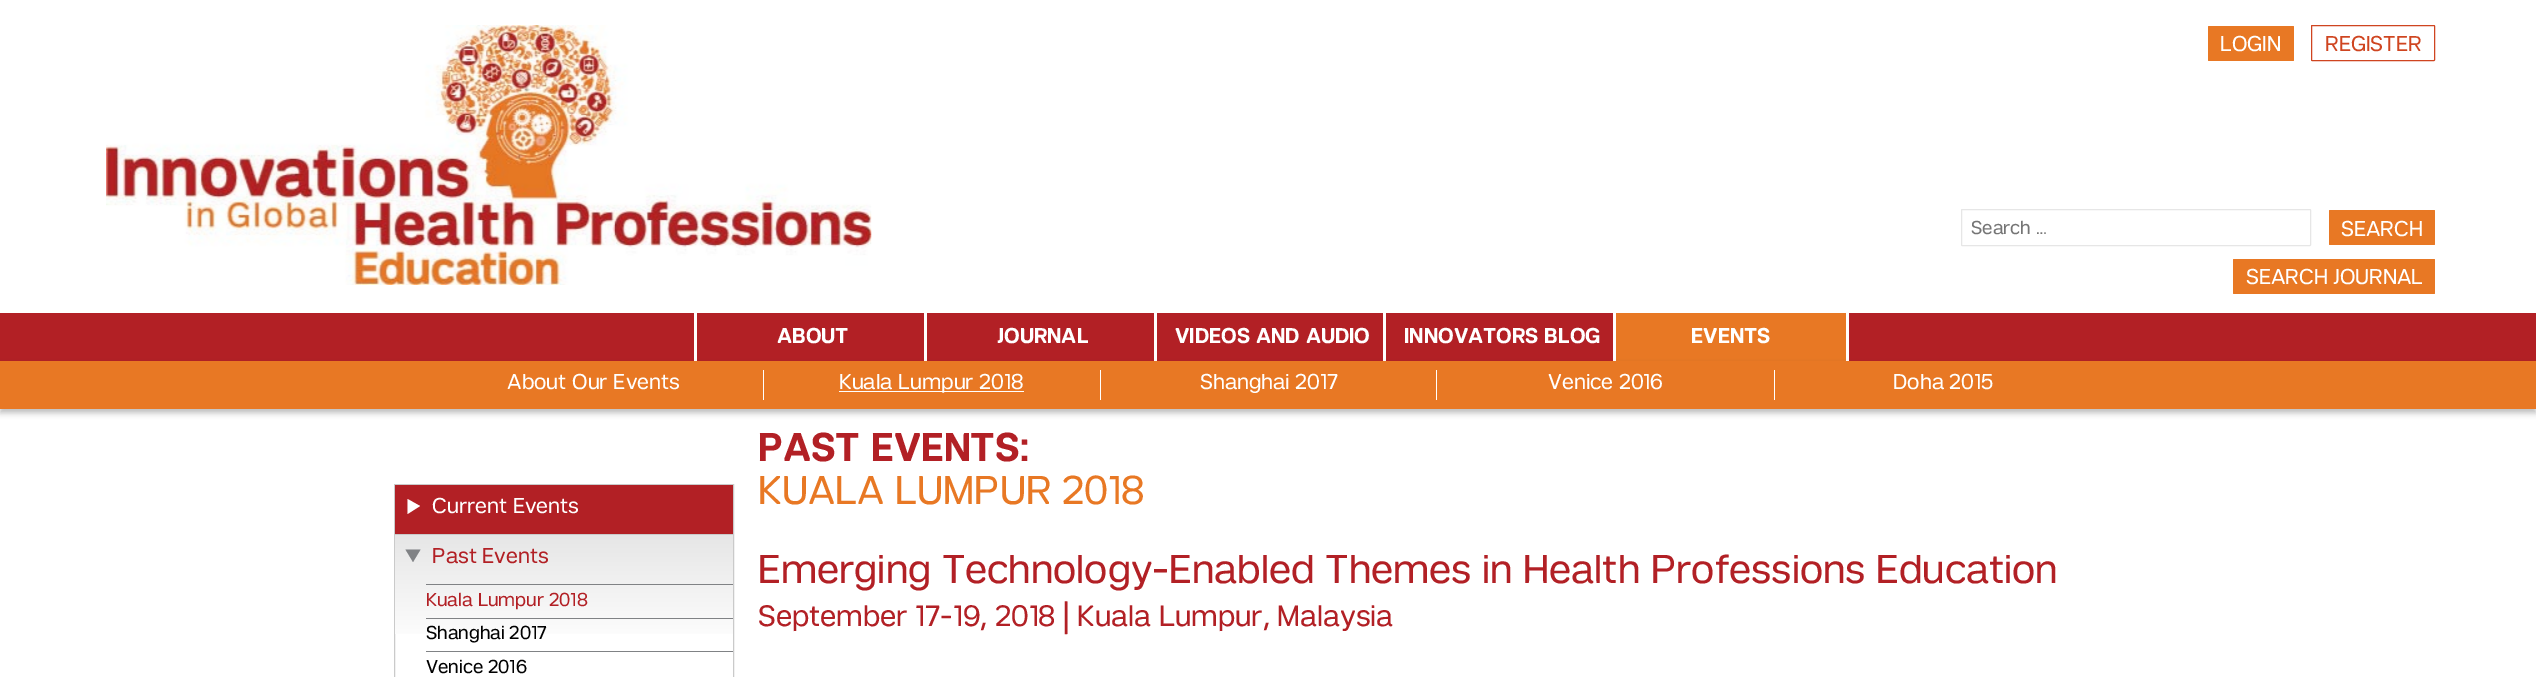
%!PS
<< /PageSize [2536 677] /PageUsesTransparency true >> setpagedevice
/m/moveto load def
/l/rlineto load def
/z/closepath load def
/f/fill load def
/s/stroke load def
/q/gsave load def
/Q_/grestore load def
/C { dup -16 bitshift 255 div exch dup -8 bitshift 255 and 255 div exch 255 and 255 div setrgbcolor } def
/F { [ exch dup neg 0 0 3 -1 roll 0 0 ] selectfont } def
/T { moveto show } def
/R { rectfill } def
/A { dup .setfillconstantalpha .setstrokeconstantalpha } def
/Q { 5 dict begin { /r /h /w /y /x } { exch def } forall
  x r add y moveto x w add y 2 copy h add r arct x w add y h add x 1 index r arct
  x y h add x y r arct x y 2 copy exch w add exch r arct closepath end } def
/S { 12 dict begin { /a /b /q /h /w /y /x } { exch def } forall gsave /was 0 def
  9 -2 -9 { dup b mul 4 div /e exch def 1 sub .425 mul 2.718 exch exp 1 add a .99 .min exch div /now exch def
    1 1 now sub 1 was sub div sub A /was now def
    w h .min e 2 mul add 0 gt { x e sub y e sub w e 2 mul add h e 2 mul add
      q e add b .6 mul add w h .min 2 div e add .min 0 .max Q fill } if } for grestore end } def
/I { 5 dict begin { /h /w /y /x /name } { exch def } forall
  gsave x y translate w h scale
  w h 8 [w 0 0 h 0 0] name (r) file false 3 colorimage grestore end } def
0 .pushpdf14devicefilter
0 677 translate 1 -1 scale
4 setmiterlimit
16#FFFFFF C
0 0 2536 677 R
(1.rgb) 106 25 766 260 I
16#E87824 C
2208 26 86 35 1 Q f
/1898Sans-Regular 20 F
16#FFFFFF C
(LOGIN) 2220 51 T
16#CF4520 C
2311.5 25.5 123 35 .5 Q s
(REGISTER) 2325 51 T
16#E6E6E6 C
1961.5 209.5 349 36 .5 Q s
/1898Sans-Regular 17.5 F
16#757575 C
(Search …) 1971 234 T
16#E87824 C
2329 210 106 35 1 Q f
/1898Sans-Regular 20 F
16#FFFFFF C
(SEARCH) 2341 236 T
16#E87824 C
2233 259 202 35 1 Q f
16#FFFFFF C
(SEARCH JOURNAL) 2246 284 T
16#B22025 C
0 313 2536 48 R
16#E87824 C
1616 313 230 48 R
16#FFFFFF C
1846 313 3 48 R
1613 313 3 48 R
/1898Sans-Bold 20 F
(EVENTS) 1691 343 T
694 313 3 48 R
924 313 3 48 R
1154 313 3 48 R
1383 313 3 48 R
16#000000 C
0 365 2536 48 0 3 .25 S
16#E87824 C
0 361 2536 48 R
/1898Sans-Regular 20 F
16#FFFFFF C
(About Our Events) 507 389 T
763 370 1 30 R
839 391 185 1 R
(Kuala Lumpur 2018) 839 389 T
1100 370 1 30 R
(Shanghai 2017) 1200 389 T
1436 370 1 30 R
(Venice 2016) 1548 389 T
1774 370 1 30 R
(Doha 2015) 1893 389 T
/1898Sans-Bold 20 F
(ABOUT) 777 343 T
(JOURNAL) 997 343 T
(VIDEOS AND AUDIO) 1175 343 T
(INNOVATORS BLOG) 1404 343 T
16#CACACA C
394.5 484.5 339 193 rectstroke
16#B22025 C
395 485 338 49 R
16#FFFFFF C
407.5 514 m 0 -15 l 12.5 7 l z f
/1898Sans-Regular 20 F
(Current Events) 432 513 T
q 395 535 m 338 0 l 0 99 l -338 0 l z clip newpath
<< /ShadingType 2 /ColorSpace /DeviceRGB /Coords [564 535 564 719] /Extend [true true] /Function << /FunctionType 3 /Domain [0 1] /Functions [<< /FunctionType 2 /Domain [0 1] /C0 [.902 .902 .902] /C1 [1 1 1] /N 1 >> << /FunctionType 2 /Domain [0 1] /C0 [1 1 1] /C1 [1 1 1] /N 1 >>] /Bounds [.6] /Encode [0 1 0 1] >> >> shfill Q_
16#CACACA C
395 534 338 1 R
16#808285 C
405.5 549.5 m 15 0 l -7.5 12.5 l z f
16#B22025 C
(Past Events) 432 563 T
16#808285 C
426 584 307 1 R
/1898Sans-Regular 17.5 F
16#B22025 C
(Kuala Lumpur 2018) 426 606 T
16#808285 C
426 618 307 1 R
16#010101 C
(Shanghai 2017) 426 639 T
16#808285 C
426 651 307 1 R
16#010101 C
(Venice 2016) 426 673 T
/1898Sans-Bold 37.5 F
16#B22025 C
(PAST EVENTS:) 758 461 T
/1898Sans-Regular 37.5 F
16#E87824 C
(KUALA LUMPUR 2018) 758 504 T
16#B22025 C
(Emerging Technology-Enabled Themes in Health Professions Education) 758 583 T
/1898Sans-Regular 27.5 F
(September 17-19, 2018 | Kuala Lumpur, Malaysia) 758 626 T
.poppdf14devicefilter showpage
